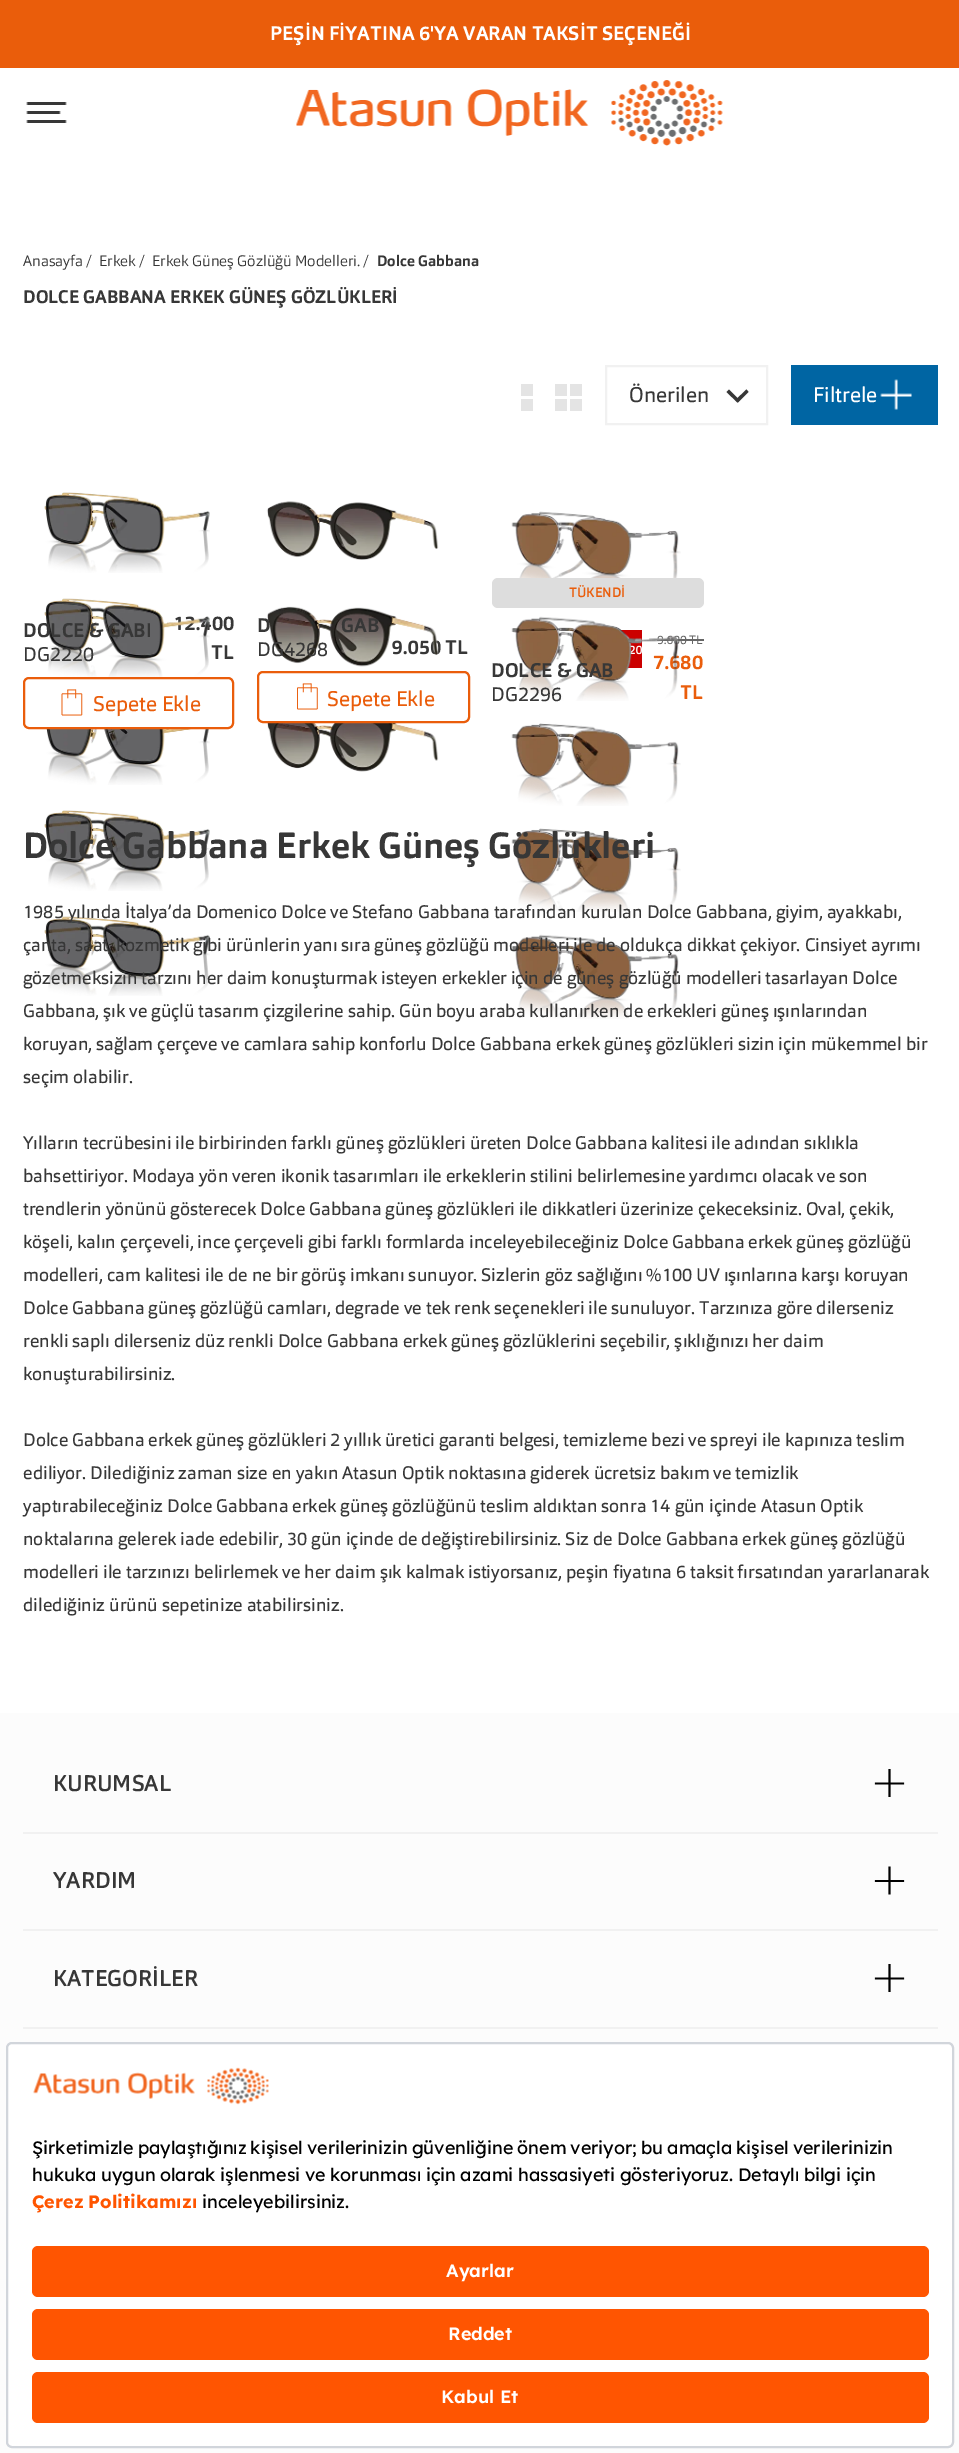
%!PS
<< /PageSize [959 2453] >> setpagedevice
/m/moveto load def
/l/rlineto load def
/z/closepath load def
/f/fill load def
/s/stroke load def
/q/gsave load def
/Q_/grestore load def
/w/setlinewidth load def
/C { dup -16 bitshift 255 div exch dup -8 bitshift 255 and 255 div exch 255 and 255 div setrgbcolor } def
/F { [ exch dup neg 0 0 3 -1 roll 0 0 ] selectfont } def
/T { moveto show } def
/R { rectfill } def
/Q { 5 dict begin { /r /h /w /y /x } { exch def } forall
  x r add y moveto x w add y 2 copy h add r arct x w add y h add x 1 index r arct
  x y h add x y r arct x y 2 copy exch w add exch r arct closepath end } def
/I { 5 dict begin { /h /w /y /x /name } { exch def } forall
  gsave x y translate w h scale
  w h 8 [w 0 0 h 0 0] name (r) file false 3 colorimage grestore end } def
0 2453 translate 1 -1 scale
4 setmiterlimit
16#FFFFFF C
0 0 959 2453 R
16#EA5D0B C
0 0 959 68 R
/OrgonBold-Bold 19.5 F
16#FFFFFF C
(PEŞİN FİYATINA 6'YA VARAN TAKSİT SEÇENEĞİ) 270 40 T
(1.rgb) 26 102 41 21 I
(2.rgb) 296 80 427 66 I
/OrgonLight-Light 15 F
16#373737 C
(Anasayfa /) 23 266 T
(Erkek /) 99 266 T
(Erkek Güneş Gözlüğü Modelleri. /) 152 266 T
/OrgonBold-Bold 15 F
(Dolce Gabbana) 377 266 T
/OrgonBold-Bold 18 F
(DOLCE GABBANA ERKEK GÜNEŞ GÖZLÜKLERİ) 23 303 T
16#E4E4E4 C
521 384 12 12 R
521 399 12 12 R
555 384 12 12 R
570 384 12 12 R
555 399 12 12 R
570 399 12 12 R
16#F1F1F1 C
2 w
606 366 161 58 rectstroke
/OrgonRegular-Regular 21 F
16#373737 C
(Önerilen) 629 402 T
729 389.5 m 10.5 10.5 l -2 2.5 l -11 -10.5 l z f
735.5 400 m 11 -10.5 l 2 2.5 l -10.5 10.5 l z f
16#0065A3 C
791 365 147 60 R
16#FFFFFF C
(Filtrele) 813 402 T
(3.rgb) 880 379 32 31 I
(4.rgb) 44 492 166 81 I
/OrgonBold-Bold 19.5 F
16#373737 C
(12.400) 173 630 T
(5.rgb) 44 598 166 79 I
(6.rgb) 46 729 164 56 I
(4.rgb) 44 810 166 81 I
(7.rgb) 44 916 166 80 I
q
23 620 127 48 rectclip
23 637 m .1 0 (DOLCE & GABB) ashow
Q_
/OrgonRegular-Regular 19.5 F
23 661 m .1 0 (DG2220) ashow
/OrgonBold-Bold 19.5 F
(TL) 211 659 T
16#EA5D0B C
24 678 209 50 5 Q s
(8.rgb) 61 689 22 27 I
/OrgonRegular-Regular 21 F
(Sepete Ekle) 93 711 T
(9.rgb) 266 501 173 59 I
/OrgonBold-Bold 19.5 F
16#373737 C
(9.050 TL) 391 654 T
(10.rgb) 267 606 172 61 I
(11.rgb) 267 723 172 49 I
257 632 m .1 0 (D) ashow
341 632 m .1 0 (GAB) ashow
/OrgonRegular-Regular 19.5 F
257 656 m .1 0 (DG4268) ashow
16#EA5D0B C
258 672 211 50 5 Q s
(12.rgb) 297 683 21 27 I
/OrgonRegular-Regular 21 F
(Sepete Ekle) 327 706 T
(13.rgb) 511 511 170 67 I
16#CB0000 C
620 630 22 38 R
/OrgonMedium-Medium 12 F
16#FFFFFF C
(20) 629 654 T
/OrgonRegular-Regular 12 F
16#666666 C
(9.600 TL) 657 644 T
657 639 47 2 R
/OrgonBold-Bold 19.5 F
16#EA5D0B C
(7.680) 653 669 T
(TL) 680 699 T
(14.rgb) 511 616 170 85 I
(15.rgb) 511 723 170 83 I
(16.rgb) 511 828 170 84 I
(17.rgb) 511 934 170 85 I
16#DDDDDD C
492 578 212 30 6 Q f
/OrgonMedium-Medium 13.5 F
16#EA5D0B C
(TÜKENDİ) 569 597 T
/OrgonBold-Bold 19.5 F
16#373737 C
491 677 m .1 0 (DOLCE & GAB) ashow
/OrgonRegular-Regular 19.5 F
491 701 m .1 0 (DG2296) ashow
/OrgonBold-Bold 36 F
(Dolce Gabbana Erkek Güneş Gözlükleri) 23 858 T
/OrgonRegular-Regular 18 F
(1985 yılında İtalya’da Domenico Dolce ve Stefano Gabbana tarafından kurulan Dolce Gabbana, giyim, ayakkabı,) 23 918 T
(çanta, saat, kozmetik gibi ürünlerin yanı sıra güneş gözlüğü modelleri ile de oldukça dikkat çekiyor. Cinsiyet ayrımı) 23 951 T
(gözetmeksizin tarzını her daim konuşturmak isteyen erkekler için de güneş gözlüğü modelleri tasarlayan Dolce) 23 984 T
(Gabbana, şık ve güçlü tasarım çizgilerine sahip. Gün boyu araba kullanırken de erkekleri güneş ışınlarından) 23 1017 T
(koruyan, sağlam çerçeve ve camlara sahip konforlu Dolce Gabbana erkek güneş gözlükleri sizin için mükemmel bir) 23 1050 T
(seçim olabilir.) 23 1083 T
(Yılların tecrübesini ile birbirinden farklı güneş gözlükleri üreten Dolce Gabbana kalitesi ile adından sıklıkla) 23 1149 T
(bahsettiriyor. Modaya yön veren ikonik tasarımları ile erkeklerin stilini belirlemesine yardımcı olacak ve son) 23 1182 T
(trendlerin yönünü gösterecek Dolce Gabbana güneş gözlükleri ile dikkatleri üzerinize çekeceksiniz. Oval, çekik,) 23 1215 T
(köşeli, kalın çerçeveli, ince çerçeveli gibi farklı formlarda inceleyebileceğiniz Dolce Gabbana erkek güneş gözlüğü) 23 1248 T
(modelleri, cam kalitesi ile de ne bir görüş imkanı sunuyor. Sizlerin göz sağlığını %100 UV ışınlarına karşı koruyan) 23 1281 T
(Dolce Gabbana güneş gözlüğü camları, degrade ve tek renk seçenekleri ile sunuluyor. Tarzınıza göre dilerseniz) 23 1314 T
(renkli saplı dilerseniz düz renkli Dolce Gabbana erkek güneş gözlüklerini seçebilir, şıklığınızı her daim) 23 1347 T
(konuşturabilirsiniz.) 23 1380 T
(Dolce Gabbana erkek güneş gözlükleri 2 yıllık üretici garanti belgesi, temizleme bezi ve spreyi ile kapınıza teslim) 23 1446 T
(ediliyor. Dilediğiniz zaman size en yakın Atasun Optik noktasına giderek ücretsiz bakım ve temizlik) 23 1479 T
(yaptırabileceğiniz Dolce Gabbana erkek güneş gözlüğünü teslim aldıktan sonra 14 gün içinde Atasun Optik) 23 1512 T
(noktalarına gelerek iade edebilir, 30 gün içinde de değiştirebilirsiniz. Siz de Dolce Gabbana erkek güneş gözlüğü) 23 1545 T
(modelleri ile tarzınızı belirlemek ve her daim şık kalmak istiyorsanız, peşin fiyatına 6 taksit fırsatından yararlanarak) 23 1578 T
(dilediğiniz ürünü sepetinize atabilirsiniz.) 23 1611 T
16#FCFCFC C
0 1713 959 740 R
16#F1F1F1 C
23 1832 915 2 R
/OrgonMedium-Medium 22.5 F
16#373737 C
(KURUMSAL) 53 1791 T
(18.rgb) 874 1769 31 28 I
16#F1F1F1 C
23 1929 915 2 R
16#373737 C
(YARDIM) 53 1888 T
(19.rgb) 874 1866 31 29 I
16#F1F1F1 C
23 2027 915 2 R
16#373737 C
(KATEGORİLER) 53 1986 T
(18.rgb) 874 1964 31 28 I
16#FFFFFF C
7 2043 946 404 5 Q q f Q_
16#D1D5DB C
s
(20.rgb) 33 2067 236 38 I
/Lexend-Regular 18 F
16#000000 C
32 2154 m -1 0 32 (Şirketimizle paylaştığınız kişisel verilerinizin güvenliğine önem veriyor; bu amaçla kişisel verilerinizin) widthshow
32 2181 m -.6 0 32 (hukuka uygun olarak işlenmesi ve korunması için azami hassasiyeti gösteriyoruz. Detaylı bilgi için) widthshow
/Lexend-Bold 18 F
16#FF5500 C
32 2208 m -1 0 32 (Çerez Politikamızı) widthshow
/Lexend-Regular 18 F
16#000000 C
(inceleyebilirsiniz.) 202 2208 T
16#FF5501 C
32 2246 897 51 6 Q f
/Lexend-SemiBold 18 F
16#FFFFFF C
(Ayarlar) 446 2277 T
16#FF5501 C
32 2309 897 51 6 Q f
16#FFFFFF C
(Reddet) 448 2340 T
16#FF5501 C
32 2372 897 51 6 Q f
16#FFFFFF C
(Kabul Et) 441 2403 T
showpage
